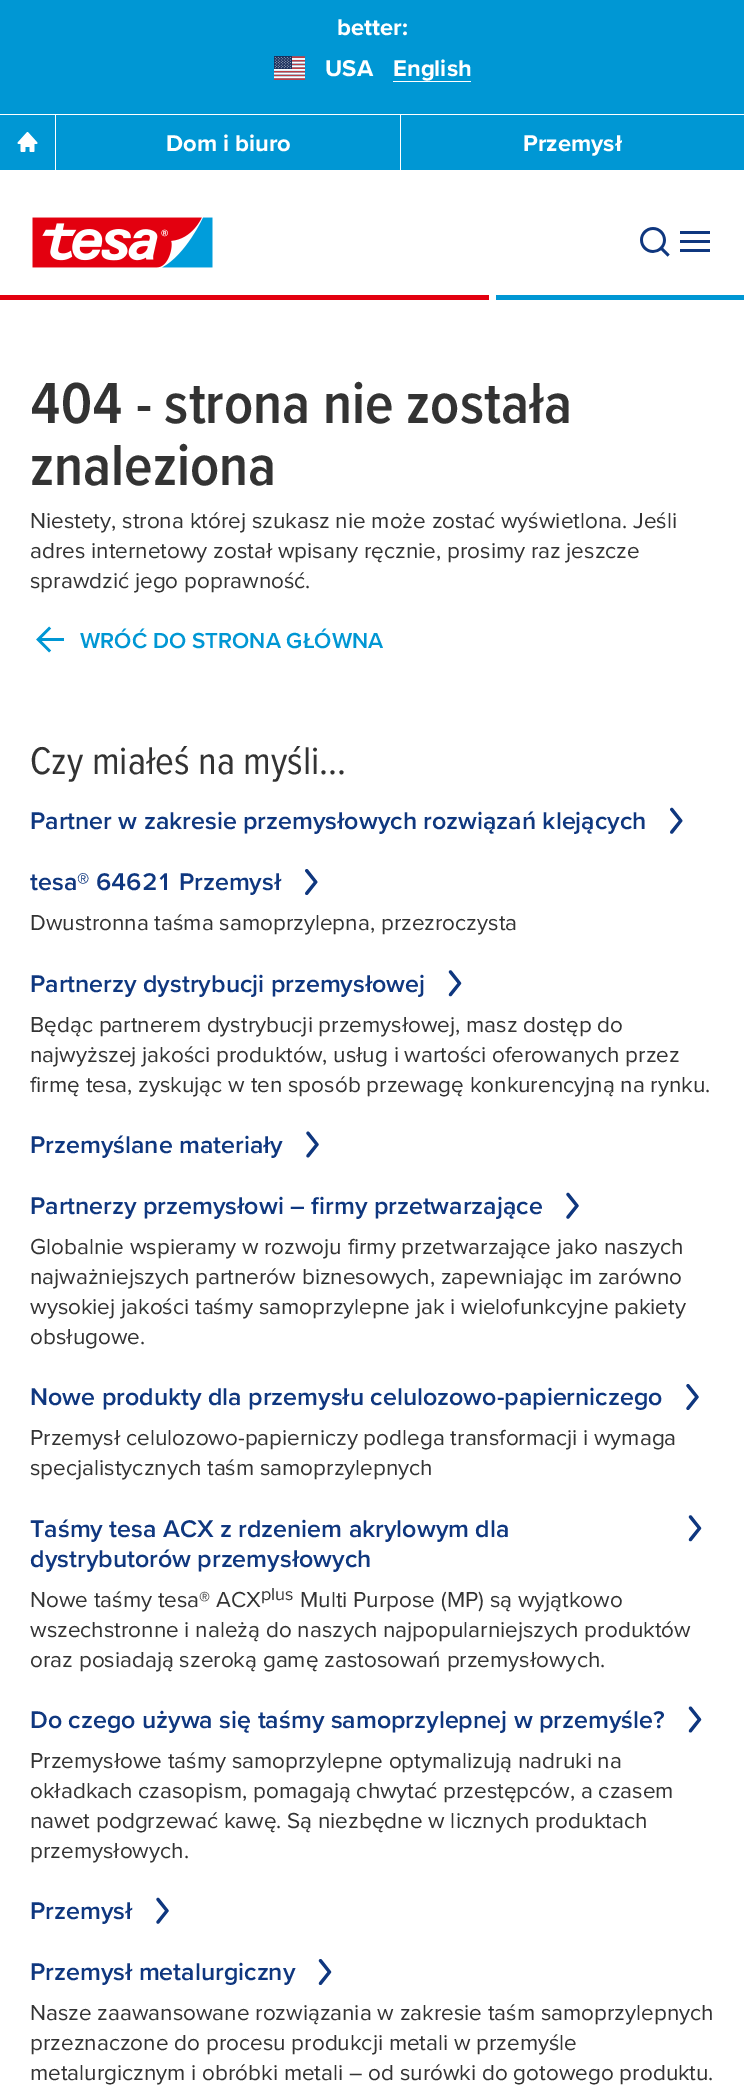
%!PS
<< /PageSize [744 2096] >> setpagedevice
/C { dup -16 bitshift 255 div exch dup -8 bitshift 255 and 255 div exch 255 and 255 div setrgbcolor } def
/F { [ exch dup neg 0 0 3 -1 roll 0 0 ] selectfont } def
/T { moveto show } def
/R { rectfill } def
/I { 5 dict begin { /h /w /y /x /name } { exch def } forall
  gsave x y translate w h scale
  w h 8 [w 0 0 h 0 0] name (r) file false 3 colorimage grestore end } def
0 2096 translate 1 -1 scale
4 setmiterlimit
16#FFFFFF C
0 0 744 2096 R
16#0097D4 C
0 0 744 114 R
/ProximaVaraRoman-Bold 23.75 F
16#FFFFFF C
(better:) 337 35 T
(1.rgb) 274 56 31 24 I
(USA) 325 76 T
(English) 393 76 T
393 81 78 1 R
16#0097D4 C
0 115 744 55 R
(2.rgb) 17 132 21 20 I
16#FFFFFF C
55 115 1 55 R
(Dom i biuro) 166 151 T
400 115 1 55 R
(Przemysł) 523 151 T
(3.rgb) 32 217 181 51 I
(4.rgb) 640 227 30 30 I
(5.rgb) 680 231 30 21 I
16#0097D4 C
496 295 248 5 R
16#E3000F C
0 295 496 5 R
16#FFFFFF C
489 295 7 5 R
/ProximaVaraRoman-SemiBold 60 F
16#333333 C
(404 - strona nie została) 30 423 T
(znaleziona) 30 485 T
/ProximaVaraRoman-Regular 22.5 F
(Niestety, strona której szukasz nie może zostać wyświetlona. Jeśli) 30 528 T
(adres internetowy został wpisany ręcznie, prosimy raz jeszcze) 30 558 T
(sprawdzić jego poprawność.) 30 588 T
(6.rgb) 36 626 28 27 I
/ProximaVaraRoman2-SemiBold 22.5 F
16#0097D4 C
(WRÓĆ DO STRONA GŁÓWNA) 80 648 T
/ProximaVaraRoman2-Regular 40 F
16#333333 C
(Czy miałeś na myśli...) 30 774 T
/ProximaVaraRoman2-SemiBold 25 F
16#0F377F C
(Partner w zakresie przemysłowych rozwiązań klejących) 30 829 T
(7.rgb) 670 807 13 27 I
(tesa® 64621 Przemysł) 30 890 T
(8.rgb) 305 869 13 26 I
/ProximaVaraRoman-Regular 22.5 F
16#333333 C
(Dwustronna taśma samoprzylepna, przezroczysta) 30 930 T
/ProximaVaraRoman2-SemiBold 25 F
16#0F377F C
(Partnerzy dystrybucji przemysłowej) 30 992 T
(9.rgb) 448 970 14 27 I
/ProximaVaraRoman-Regular 22.5 F
16#333333 C
(Będąc partnerem dystrybucji przemysłowej, masz dostęp do) 30 1032 T
(najwyższej jakości produktów, usług i wartości oferowanych przez) 30 1062 T
(firmę tesa, zyskując w ten sposób przewagę konkurencyjną na rynku.) 30 1092 T
/ProximaVaraRoman2-SemiBold 25 F
16#0F377F C
(Przemyślane materiały) 30 1153 T
(10.rgb) 306 1131 13 27 I
(Partnerzy przemysłowi – firmy przetwarzające) 30 1214 T
(11.rgb) 566 1192 13 27 I
/ProximaVaraRoman-Regular 22.5 F
16#333333 C
(Globalnie wspieramy w rozwoju firmy przetwarzające jako naszych) 30 1254 T
(najważniejszych partnerów biznesowych, zapewniając im zarówno) 30 1284 T
(wysokiej jakości taśmy samoprzylepne jak i wielofunkcyjne pakiety) 30 1314 T
(obsługowe.) 30 1344 T
/ProximaVaraRoman2-SemiBold 25 F
16#0F377F C
(Nowe produkty dla przemysłu celulozowo-papierniczego) 30 1405 T
(12.rgb) 686 1384 13 26 I
/ProximaVaraRoman-Regular 22.5 F
16#333333 C
(Przemysł celulozowo-papierniczy podlega transformacji i wymaga) 30 1445 T
(specjalistycznych taśm samoprzylepnych) 30 1475 T
/ProximaVaraRoman2-SemiBold 25 F
16#0F377F C
(Taśmy tesa ACX z rdzeniem akrylowym dla) 30 1537 T
(9.rgb) 688 1515 14 27 I
(dystrybutorów przemysłowych) 30 1567 T
/ProximaVaraRoman-Regular 22.5 F
16#333333 C
(Nowe taśmy tesa® ACX) 30 1607 T
/ProximaVaraRoman-Regular 18 F
(plus) 261 1600 T
/ProximaVaraRoman-Regular 22.5 F
(Multi Purpose \(MP\) są wyjątkowo) 300 1607 T
(wszechstronne i należą do naszych najpopularniejszych produktów) 30 1637 T
(oraz posiadają szeroką gamę zastosowań przemysłowych.) 30 1667 T
/ProximaVaraRoman2-SemiBold 25 F
16#0F377F C
(Do czego używa się taśmy samoprzylepnej w przemyśle?) 30 1728 T
(13.rgb) 688 1706 14 27 I
/ProximaVaraRoman-Regular 22.5 F
16#333333 C
(Przemysłowe taśmy samoprzylepne optymalizują nadruki na) 30 1768 T
(okładkach czasopism, pomagają chwytać przestępców, a czasem) 30 1798 T
(nawet podgrzewać kawę. Są niezbędne w licznych produktach) 30 1828 T
(przemysłowych.) 30 1858 T
/ProximaVaraRoman2-SemiBold 25 F
16#0F377F C
(Przemysł) 30 1919 T
(14.rgb) 156 1897 13 27 I
(Przemysł metalurgiczny) 30 1980 T
(15.rgb) 318 1959 14 26 I
/ProximaVaraRoman-Regular 22.5 F
16#333333 C
(Nasze zaawansowane rozwiązania w zakresie taśm samoprzylepnych) 30 2020 T
(przeznaczone do procesu produkcji metali w przemyśle) 30 2050 T
(metalurgicznym i obróbki metali – od surówki do gotowego produktu.) 30 2080 T
showpage
